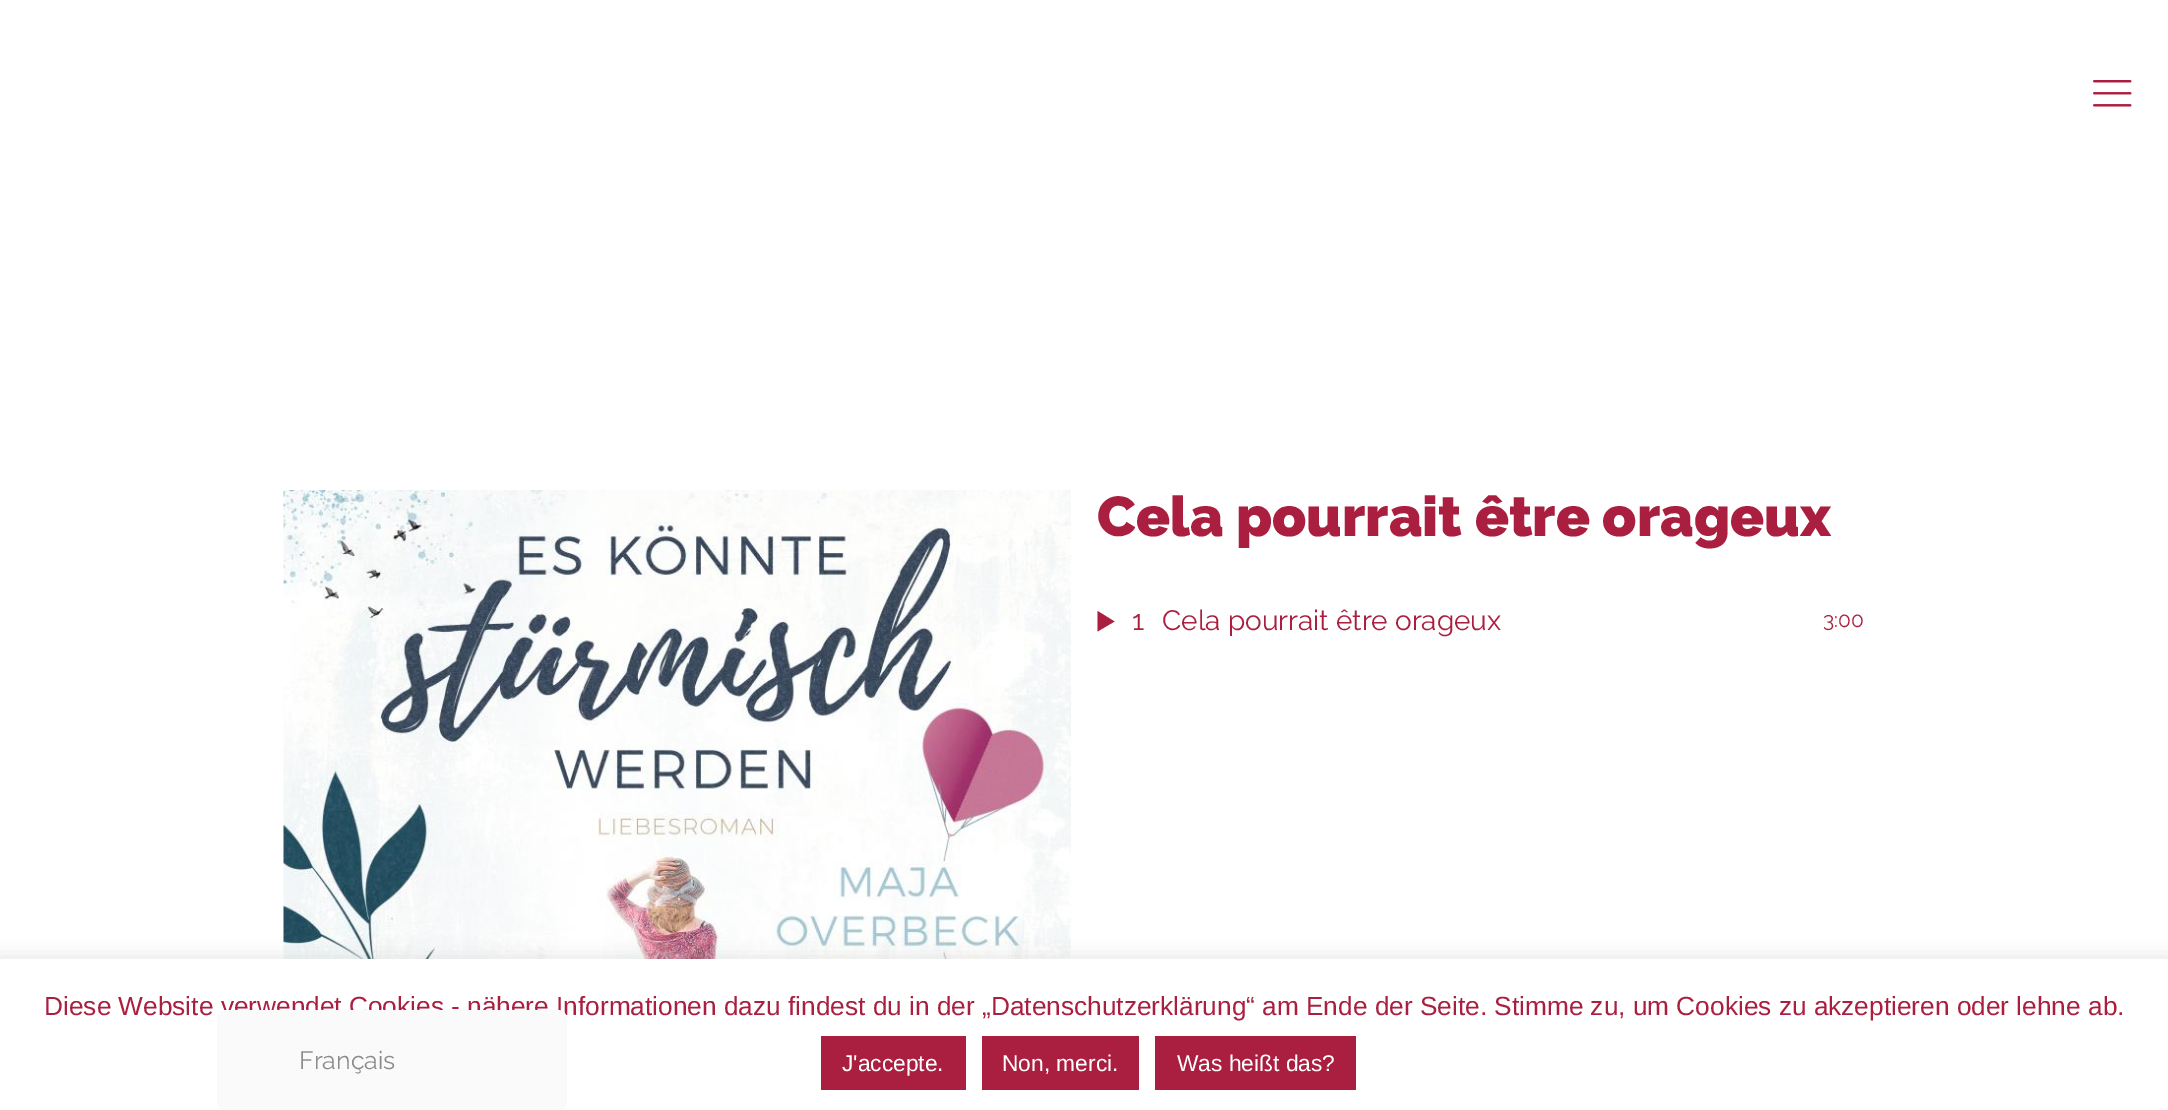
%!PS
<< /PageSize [2168 1110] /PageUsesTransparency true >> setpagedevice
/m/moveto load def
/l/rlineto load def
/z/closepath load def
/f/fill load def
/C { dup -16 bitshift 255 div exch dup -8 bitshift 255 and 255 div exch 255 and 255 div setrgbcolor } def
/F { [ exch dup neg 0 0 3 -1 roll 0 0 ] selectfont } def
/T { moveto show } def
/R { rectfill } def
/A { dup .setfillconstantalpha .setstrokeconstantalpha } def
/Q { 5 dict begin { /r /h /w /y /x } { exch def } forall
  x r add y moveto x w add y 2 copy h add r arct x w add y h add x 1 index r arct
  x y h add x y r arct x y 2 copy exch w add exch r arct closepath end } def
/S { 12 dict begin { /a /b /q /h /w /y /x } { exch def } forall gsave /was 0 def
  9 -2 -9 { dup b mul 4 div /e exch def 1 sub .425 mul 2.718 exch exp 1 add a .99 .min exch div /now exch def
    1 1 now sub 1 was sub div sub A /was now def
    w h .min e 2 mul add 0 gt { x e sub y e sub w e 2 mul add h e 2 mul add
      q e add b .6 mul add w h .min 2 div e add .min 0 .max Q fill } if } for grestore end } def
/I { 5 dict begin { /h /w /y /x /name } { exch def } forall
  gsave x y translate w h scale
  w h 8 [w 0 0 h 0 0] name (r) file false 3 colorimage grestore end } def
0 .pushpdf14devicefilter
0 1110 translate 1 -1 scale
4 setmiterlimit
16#FFFFFF C
0 0 2168 1110 R
(1.rgb) 2093 80 39 27 I
(2.rgb) 283 490 788 469 I
/Raleway-Thin 56 F
16#AA1F40 C
(Cela pourrait être orageux) 1097 536 T
1097.5 611 m 17 10.5 l -17 10 l z f
/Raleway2-Thin 28 F
(1) 1132 630 T
(Cela pourrait être orageux) 1162 630 T
/Raleway2-Thin 21 F
(3:00) 1823 627 T
16#ACABAB C
0 957 2168 153 0 9 .3 S
16#FFFFFF C
0 959 2168 151 R
/LiberationSans-Regular 26.25 F
16#AA1F40 C
(Diese Website verwendet Cookies - nähere Informationen dazu findest du in der „Datenschutzerklärung“ am Ende der Seite. Stimme zu, um Cookies zu akzeptieren oder lehne ab.) 44 1015 T
821 1036 145 54 R
/LiberationSans-Regular 22.75 F
16#FFFFFF C
(J'accepte.) 842 1071 T
16#AA1F40 C
982 1036 157 54 R
16#FFFFFF C
(Non, merci.) 1002 1071 T
16#AA1F40 C
1155 1036 201 54 R
16#FFFFFF C
(Was heißt das?) 1177 1071 T
16#FAFAFA C
217 1010 350 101 9 Q f
/Raleway2-Thin 25 F
16#8B8B8B C
(Français) 299 1069 T
.poppdf14devicefilter showpage
